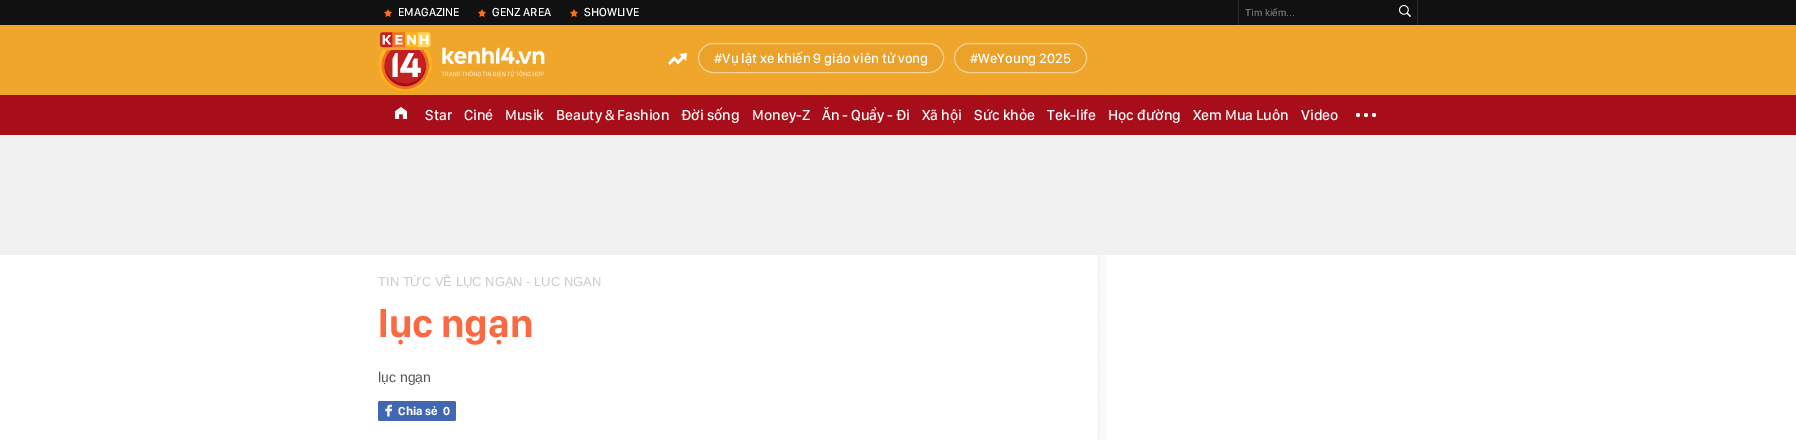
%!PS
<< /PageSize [1796 440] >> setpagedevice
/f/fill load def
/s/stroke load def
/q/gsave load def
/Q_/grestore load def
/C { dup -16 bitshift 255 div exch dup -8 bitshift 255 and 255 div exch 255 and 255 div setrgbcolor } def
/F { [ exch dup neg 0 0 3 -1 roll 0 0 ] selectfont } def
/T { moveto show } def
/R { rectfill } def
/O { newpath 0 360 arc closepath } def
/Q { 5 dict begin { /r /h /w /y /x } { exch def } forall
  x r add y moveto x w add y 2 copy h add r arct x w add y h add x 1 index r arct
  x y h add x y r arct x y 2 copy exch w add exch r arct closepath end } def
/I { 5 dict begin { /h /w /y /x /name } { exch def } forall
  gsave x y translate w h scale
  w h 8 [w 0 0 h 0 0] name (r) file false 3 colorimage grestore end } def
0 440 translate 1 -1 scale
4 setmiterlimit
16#FFFFFF C
0 0 1796 440 R
16#111111 C
0 0 1796 25 R
(1.rgb) 384 9 8 8 I
/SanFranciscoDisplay-Medium 12 F
16#FFFFFF C
(EMAGAZINE) 398 16 T
(1.rgb) 478 9 8 8 I
(GENZ AREA) 492 16 T
(1.rgb) 570 9 8 8 I
(SHOWLIVE) 584 16 T
16#292929 C
1417 0 1 25 R
1238 0 1 25 R
/LiberationSans-Regular 10 F
16#8A8A8A C
(Tìm kiếm...) 1245 16 T
(2.rgb) 1399 5 12 12 I
16#F0A52B C
0 25 1796 70 R
(3.rgb) 378 32 167 60 I
(4.rgb) 668 53 19 12 I
16#EBA22A C
698.5 43.5 245 29 14.5 Q q f Q_
16#F5D195 C
s
/SanFranciscoDisplay-Medium 14 F
16#FFFFFF C
(#Vụ lật xe khiến 9 giáo viên tử vong) 714 63 T
16#EBA22A C
954.5 43.5 132 29 14.5 Q q f Q_
16#F5D195 C
s
16#FFFFFF C
(#WeYoung 2025) 970 63 T
16#A70E1A C
0 95 1796 40 R
(5.rgb) 395 107 12 12 I
/SanFranciscoDisplay-Medium 15 F
16#FFFFFF C
(Star) 425 120 T
(Ciné) 464 120 T
(Musik) 505 120 T
(Beauty & Fashion) 556 120 T
(Đời sống) 681 120 T
(Money-Z) 752 120 T
(Ăn - Quẩy - Đi) 822 120 T
(Xã hội) 922 120 T
(Sức khỏe) 974 120 T
(Tek-life) 1047 120 T
(Học đường) 1108 120 T
(Xem Mua Luôn) 1193 120 T
(Video) 1301 120 T
1358 115 2 O f
1366 115 2 O f
1374 115 2 O f
16#F1F1F1 C
0 135 1796 120 R
/LiberationSans-Regular 13 F
16#CCCCCC C
(TIN TỨC VỀ LỤC NGẠN - LUC NGAN) 378 286 T
/SanFranciscoDisplay-Bold 40 F
16#FB6942 C
(lục ngạn) 378 337 T
/LiberationSans-Regular 14 F
16#555555 C
(lục ngạn) 378 382 T
16#4167B2 C
378 401 78 20 2 Q f
(6.rgb) 385 404 7 13 I
/SanFranciscoDisplay-Bold 12 F
16#FFFFFF C
(Chia sẻ) 398 415 T
(0) 443 415 T
(7.rgb) 1098 255 9 185 I
showpage
